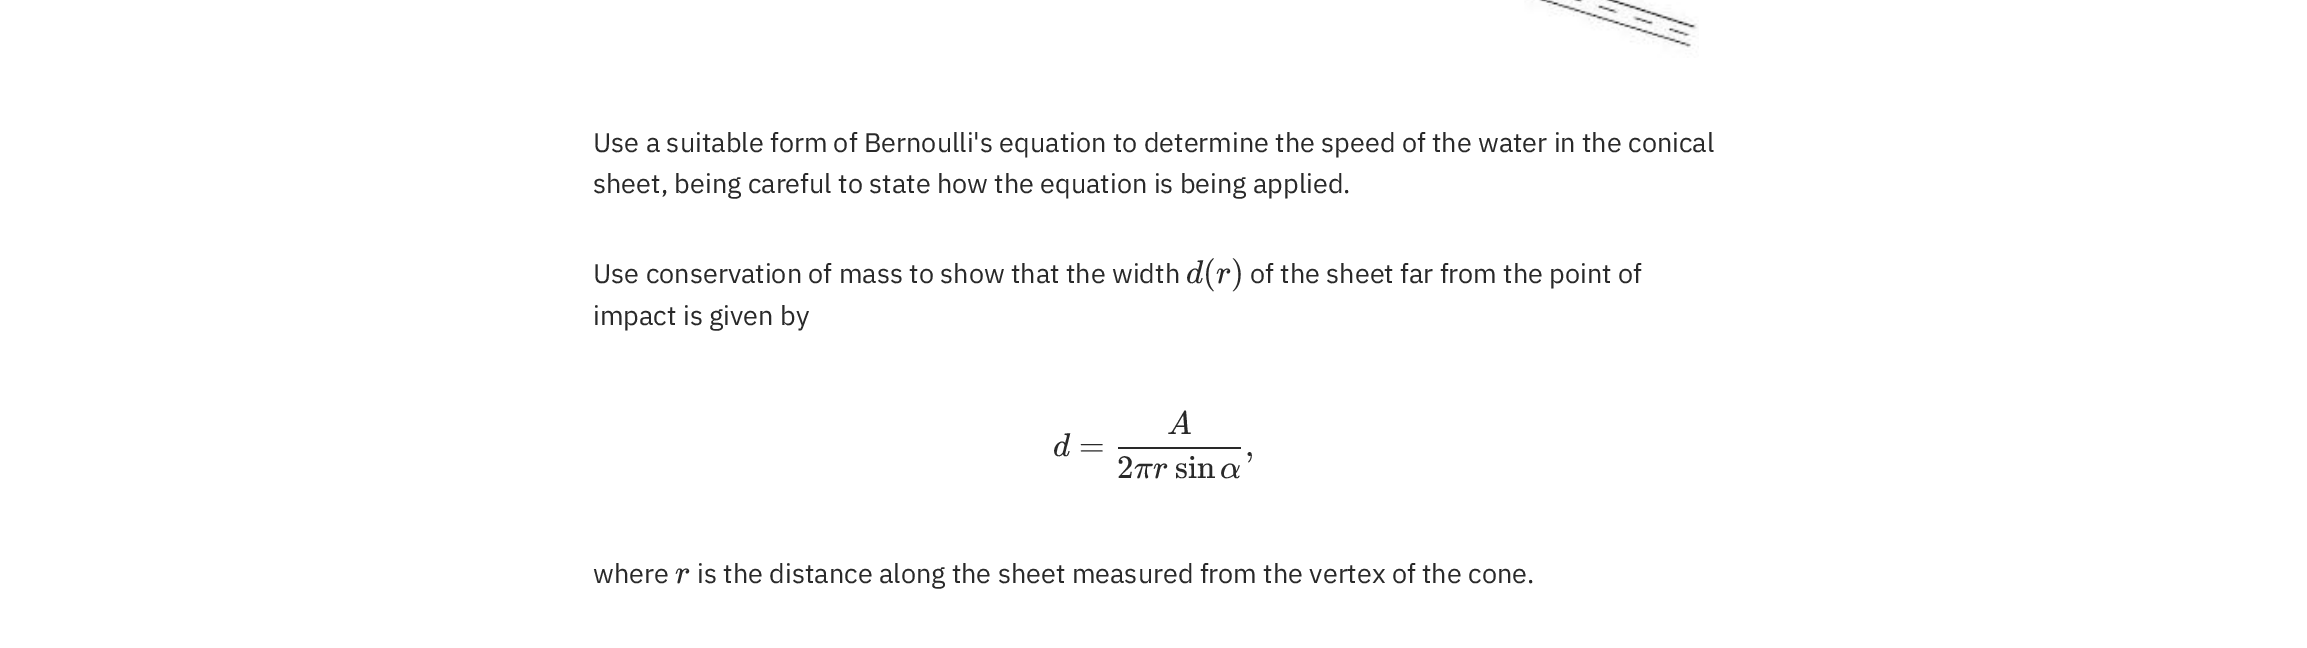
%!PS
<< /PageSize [2307 648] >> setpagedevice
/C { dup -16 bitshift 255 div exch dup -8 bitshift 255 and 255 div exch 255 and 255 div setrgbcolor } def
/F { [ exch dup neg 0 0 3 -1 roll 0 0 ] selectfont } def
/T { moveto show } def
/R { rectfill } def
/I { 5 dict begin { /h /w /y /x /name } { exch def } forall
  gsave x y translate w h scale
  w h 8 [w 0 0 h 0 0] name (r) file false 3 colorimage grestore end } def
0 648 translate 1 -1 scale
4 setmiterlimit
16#FFFFFF C
0 0 2307 648 R
(1.rgb) 1524 0 175 58 I
/IBMPlexSans-Regular 27 F
16#292929 C
(Use a suitable form of Bernoulli's equation to determine the speed of the water in the conical) 593 152 T
(sheet, being careful to state how the equation is being applied.) 593 193 T
(Use conservation of mass to show that the width) 593 283 T
/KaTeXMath-Italic 33 F
(d) 1186 283 T
/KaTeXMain-Regular 33 F
(\() 1203 283 T
/KaTeXMath-Italic 33 F
(r) 1216 283 T
/KaTeXMain-Regular 33 F
(\)) 1231 283 T
/IBMPlexSans-Regular 27 F
(of the sheet far from the point of) 1250 283 T
(impact is given by) 593 325 T
/KaTeXMath-Italic 33 F
(d) 1053 456 T
/KaTeXMain-Regular 33 F
(=) 1079 456 T
/KaTeXMath-Italic 33 F
(A) 1167 434 T
1118 447 123 2 R
/KaTeXMain-Regular 33 F
(2) 1117 478 T
/KaTeXMath-Italic 33 F
(π) 1134 478 T
(r) 1153 478 T
/KaTeXMain-Regular 33 F
(sin) 1175 478 T
/KaTeXMath-Italic 33 F
(α) 1220 478 T
/KaTeXMain-Regular 33 F
(,) 1245 456 T
/IBMPlexSans-Regular 27 F
(where) 593 583 T
/KaTeXMath-Italic 33 F
(r) 675 583 T
/IBMPlexSans-Regular 27 F
(is the distance along the sheet measured from the vertex of the cone.) 697 583 T
showpage
